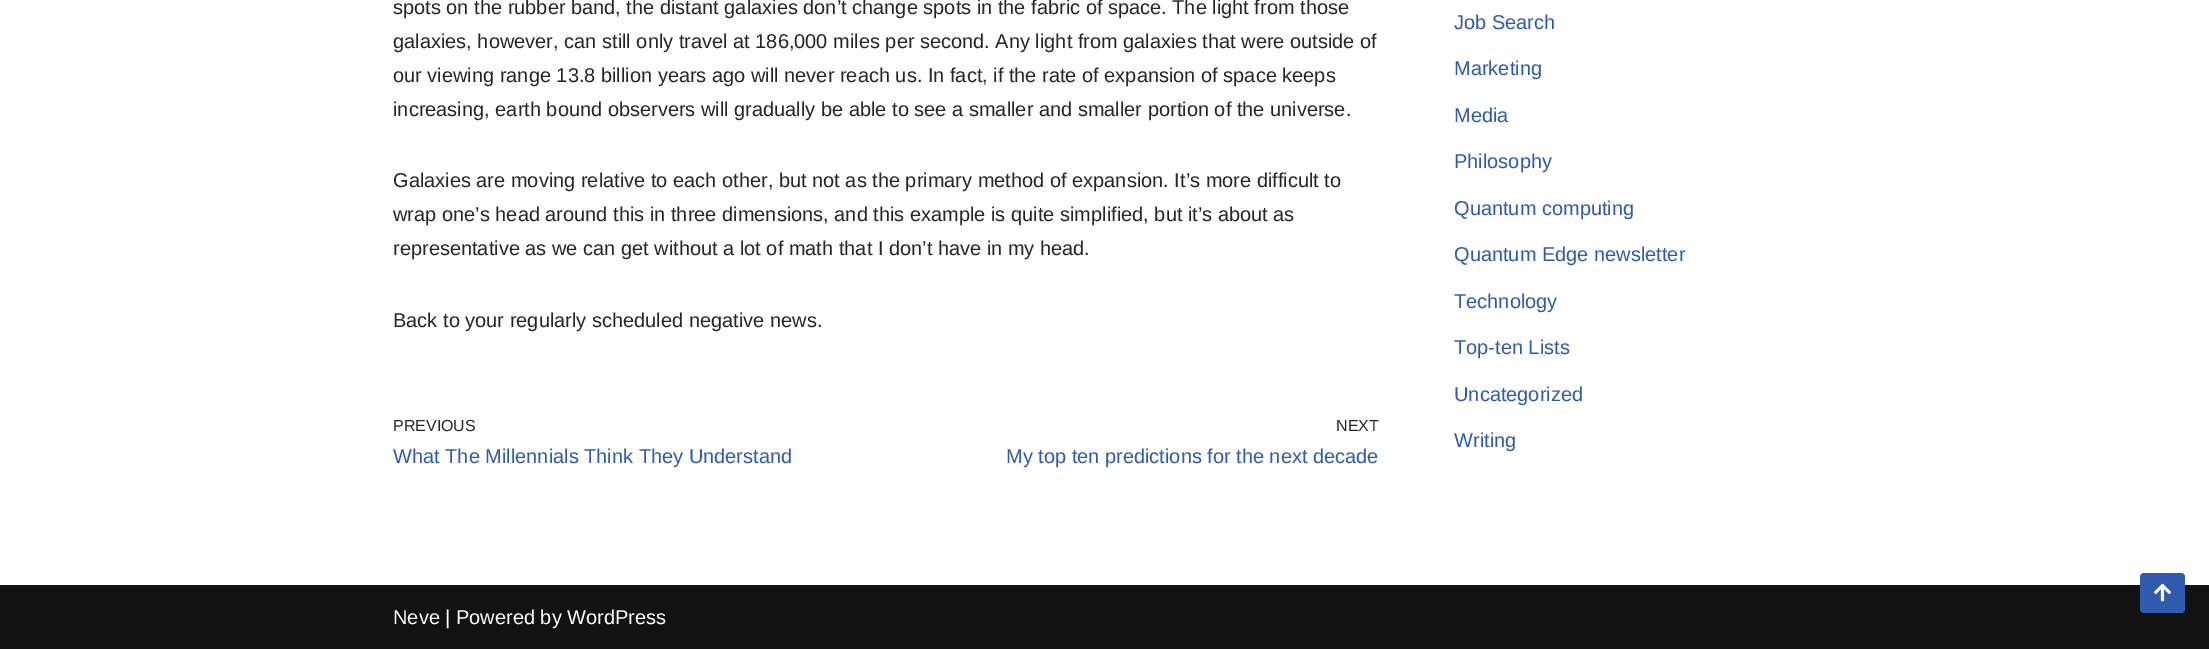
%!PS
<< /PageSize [2209 649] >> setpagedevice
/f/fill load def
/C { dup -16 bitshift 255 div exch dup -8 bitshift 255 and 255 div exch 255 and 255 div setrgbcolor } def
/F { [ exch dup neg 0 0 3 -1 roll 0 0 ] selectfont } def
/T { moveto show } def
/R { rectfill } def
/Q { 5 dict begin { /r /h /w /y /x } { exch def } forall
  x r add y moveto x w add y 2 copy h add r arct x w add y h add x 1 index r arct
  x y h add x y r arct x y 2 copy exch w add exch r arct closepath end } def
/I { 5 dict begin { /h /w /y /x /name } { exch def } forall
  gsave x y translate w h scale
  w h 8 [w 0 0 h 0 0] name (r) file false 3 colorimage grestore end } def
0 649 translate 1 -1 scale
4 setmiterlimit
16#FFFFFF C
0 0 2209 649 R
/LiberationSans-Regular 20 F
16#272626 C
(spots on the rubber band, the distant galaxies don’t change spots in the fabric of space. The light from those) 393 14 T
(galaxies, however, can still only travel at 186,000 miles per second. Any light from galaxies that were outside of) 393 48 T
(our viewing range 13.8 billion years ago will never reach us. In fact, if the rate of expansion of space keeps) 393 82 T
(increasing, earth bound observers will gradually be able to see a smaller and smaller portion of the universe.) 393 116 T
(Galaxies are moving relative to each other, but not as the primary method of expansion. It’s more difficult to) 393 187 T
(wrap one’s head around this in three dimensions, and this example is quite simplified, but it’s about as) 393 221 T
(representative as we can get without a lot of math that I don’t have in my head.) 393 255 T
(Back to your regularly scheduled negative news.) 393 327 T
/LiberationSans-Regular 16 F
(PREVIOUS) 393 431 T
/LiberationSans-Regular 20 F
16#2F5AAE C
(What The Millennials Think They Understand) 393 463 T
/LiberationSans-Regular 16 F
16#272626 C
(NEXT) 1336 431 T
/LiberationSans-Regular 20 F
16#2F5AAE C
(My top ten predictions for the next decade) 1006 463 T
(Job Search) 1454 29 T
(Marketing) 1454 75 T
(Media) 1454 122 T
(Philosophy) 1454 168 T
(Quantum computing) 1454 215 T
(Quantum Edge newsletter) 1454 261 T
(Technology) 1454 308 T
(Top-ten Lists) 1454 354 T
(Uncategorized) 1454 401 T
(Writing) 1454 447 T
16#121212 C
0 585 2209 64 R
16#2F5AAE C
2140 573 45 40 4 Q f
(1.rgb) 2154 583 17 19 I
16#FFFFFF C
(Neve | Powered by WordPress) 393 624 T
showpage
